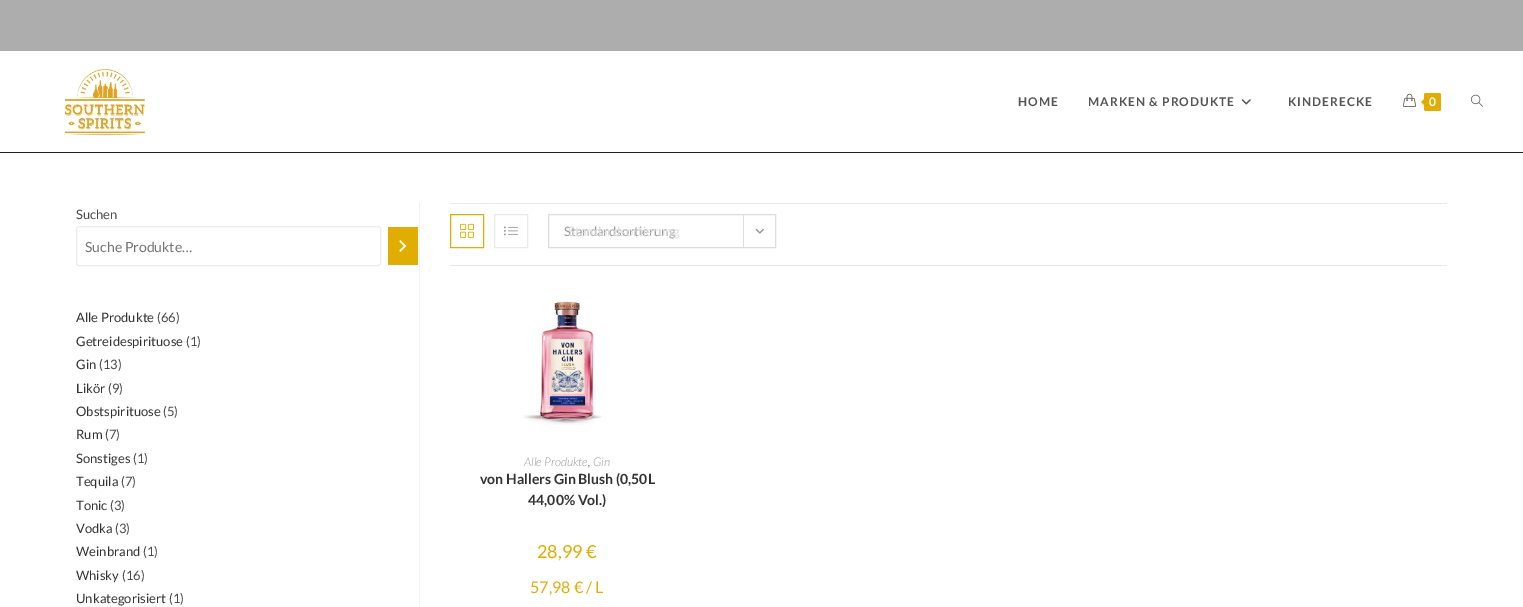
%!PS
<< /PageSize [1523 607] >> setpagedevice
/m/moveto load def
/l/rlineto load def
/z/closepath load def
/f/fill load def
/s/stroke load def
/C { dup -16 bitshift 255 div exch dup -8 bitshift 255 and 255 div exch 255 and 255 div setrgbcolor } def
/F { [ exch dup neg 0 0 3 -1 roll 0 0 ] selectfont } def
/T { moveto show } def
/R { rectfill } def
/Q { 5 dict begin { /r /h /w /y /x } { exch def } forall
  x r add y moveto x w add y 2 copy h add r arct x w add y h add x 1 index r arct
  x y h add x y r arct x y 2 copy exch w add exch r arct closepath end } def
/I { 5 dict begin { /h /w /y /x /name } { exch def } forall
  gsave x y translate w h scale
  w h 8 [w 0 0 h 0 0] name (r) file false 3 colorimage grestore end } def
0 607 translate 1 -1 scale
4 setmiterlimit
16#FFFFFF C
0 0 1523 607 R
16#ADADAD C
0 0 1523 51 R
16#212121 C
0 152 1523 1 R
(1.rgb) 65 69 80 66 I
/Lato-Bold 12 F
16#555555 C
1018 106 m 1 0 (HOME) ashow
1088 106 m 1 0 (MARKEN & PRODUKTE) ashow
(2.rgb) 1241 99 10 6 I
1288 106 m 1 0 (KINDERECKE) ashow
(3.rgb) 1403 93 13 14 I
16#E1AD01 C
1424 93 17 18 2 Q f
1426 97 m 0 10 l -5 -5 l z f
16#FFFFFF C
(0) 1429 106 T
(4.rgb) 1471 94 12 13 I
/Lato-Regular 13 F
16#4A4A4A C
(Suchen) 76 219 T
16#ECECEC C
76.5 226.5 304 39 2.5 Q s
/Lato-Regular 14 F
16#757575 C
(Suche Produkte…) 85 252 T
16#E1AD01 C
388 227 30 38 R
(5.rgb) 399 239 8 14 I
/Lato-Regular 13 F
16#333333 C
(Alle Produkte) 76 322 T
16#4A4A4A C
(\(66\)) 157 322 T
16#333333 C
(Getreidespirituose) 76 346 T
16#4A4A4A C
(\(1\)) 186 346 T
16#333333 C
(Gin) 76 369 T
16#4A4A4A C
(\(13\)) 99 369 T
16#333333 C
(Likör) 76 393 T
16#4A4A4A C
(\(9\)) 108 393 T
16#333333 C
(Obstspirituose) 76 416 T
16#4A4A4A C
(\(5\)) 163 416 T
16#333333 C
(Rum) 76 439 T
16#4A4A4A C
(\(7\)) 105 439 T
16#333333 C
(Sonstiges) 76 463 T
16#4A4A4A C
(\(1\)) 133 463 T
16#333333 C
(Tequila) 76 486 T
16#4A4A4A C
(\(7\)) 121 486 T
16#333333 C
(Tonic) 76 510 T
16#4A4A4A C
(\(3\)) 110 510 T
16#333333 C
(Vodka) 76 533 T
16#4A4A4A C
(\(3\)) 115 533 T
16#333333 C
(Weinbrand) 76 556 T
16#4A4A4A C
(\(1\)) 143 556 T
16#333333 C
(Whisky) 76 580 T
16#4A4A4A C
(\(16\)) 122 580 T
16#333333 C
(Unkategorisiert) 76 603 T
16#4A4A4A C
(\(1\)) 169 603 T
16#F1F1F1 C
419 203 1 404 R
16#EAEAEA C
450 203 997 1 R
450 265 997 1 R
16#E1AD01 C
450.5 214.5 33 33 rectstroke
(6.rgb) 460 223 14 15 I
16#EAEAEA C
494.5 214.5 33 33 rectstroke
(7.rgb) 504 226 14 10 I
16#DDDDDD C
548.5 214.5 227 33 rectstroke
16#999999 C
(Standardsortierung) 564 236 T
16#DDDDDD C
743 215 1 32 R
(8.rgb) 755 228 9 6 I
16#DEDEDE C
(Standardsortierung) 568 236 T
(9.rgb) 523 301 79 124 I
/Lato-LightItalic 12 F
16#999999 C
(Alle Produkte) 524 466 T
16#4A4A4A C
(,) 588 466 T
16#999999 C
(Gin) 593 466 T
/Lato-Bold 14 F
16#333333 C
(von Hallers Gin Blush \(0,50L) 480 484 T
(44,00% Vol.\)) 528 505 T
/Lato-Regular 18 F
16#E1AD01 C
(28,99 €) 537 558 T
/Lato-Regular 16 F
(57,98 € / L) 530 593 T
showpage
